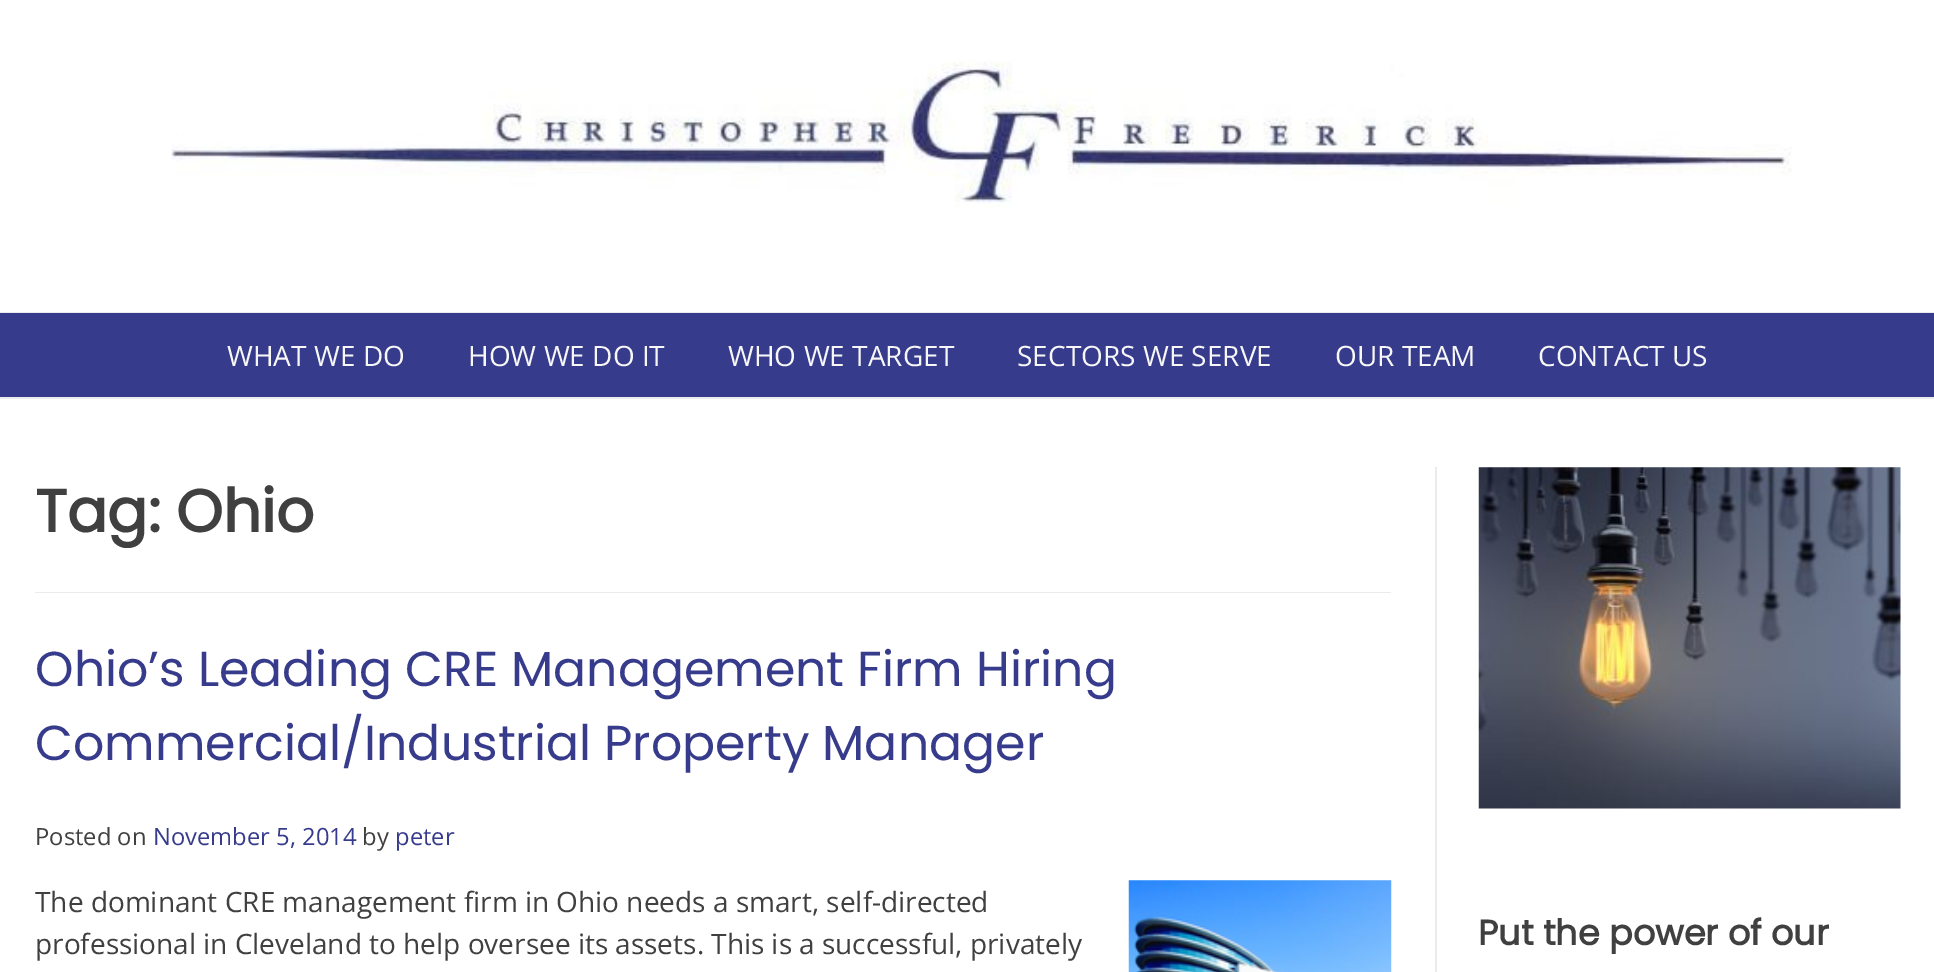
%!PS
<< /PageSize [1934 972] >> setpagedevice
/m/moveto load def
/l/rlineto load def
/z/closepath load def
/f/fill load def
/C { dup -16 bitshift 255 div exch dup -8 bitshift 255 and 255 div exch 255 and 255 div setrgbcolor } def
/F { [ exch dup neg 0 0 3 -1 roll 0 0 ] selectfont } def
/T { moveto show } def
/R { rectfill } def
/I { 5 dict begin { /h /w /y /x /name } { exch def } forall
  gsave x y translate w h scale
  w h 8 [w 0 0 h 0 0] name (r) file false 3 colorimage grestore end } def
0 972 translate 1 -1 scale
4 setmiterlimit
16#FFFFFF C
0 0 1934 972 R
16#EBEBEB C
0 397 m 0 2 l 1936 0 l 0 -397 l 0 395 l z f
(1.rgb) 171 61 1621 148 I
0 312 m 0 1 l 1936 0 l 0 83 l 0 -84 l z f
16#373B8C C
0 313 1934 84 R
/OpenSans-Regular 28 F
16#F7F7F7 C
(WHAT WE DO) 227 366 T
(HOW WE DO IT) 468 366 T
(WHO WE TARGET) 728 366 T
(SECTORS WE SERVE) 1017 366 T
(OUR TEAM) 1335 366 T
(CONTACT US) 1538 366 T
16#EBEBEB C
37 467 m 1398 0 l 0 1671 l -1398 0 l 0 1 l 1400 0 l 0 -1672 l z f
35 592 1356 1 R
/Poppins-Bold 59.5 F
16#404040 C
(Tag: Ohio) 35 532 T
/Poppins-Regular 49 F
16#373B8C C
(Ohio’s Leading CRE Management Firm Hiring) 35 686 T
(Commercial/Industrial Property Manager) 35 760 T
/OpenSans-Regular 23.75 F
16#404040 C
(Posted on) 35 845 T
16#373B8C C
(November 5, 2014) 153 845 T
16#404040 C
(by) 362 845 T
16#373B8C C
(peter) 395 845 T
/OpenSans-Regular 28 F
16#404040 C
(The dominant CRE management firm in Ohio needs a smart, self-directed) 35 912 T
(2.rgb) 1128 880 264 92 I
(professional in Cleveland to help oversee its assets. This is a successful, privately) 35 954 T
(3.rgb) 1478 467 423 342 I
/Poppins-Bold 35 F
(Put the power of our) 1478 945 T
showpage
